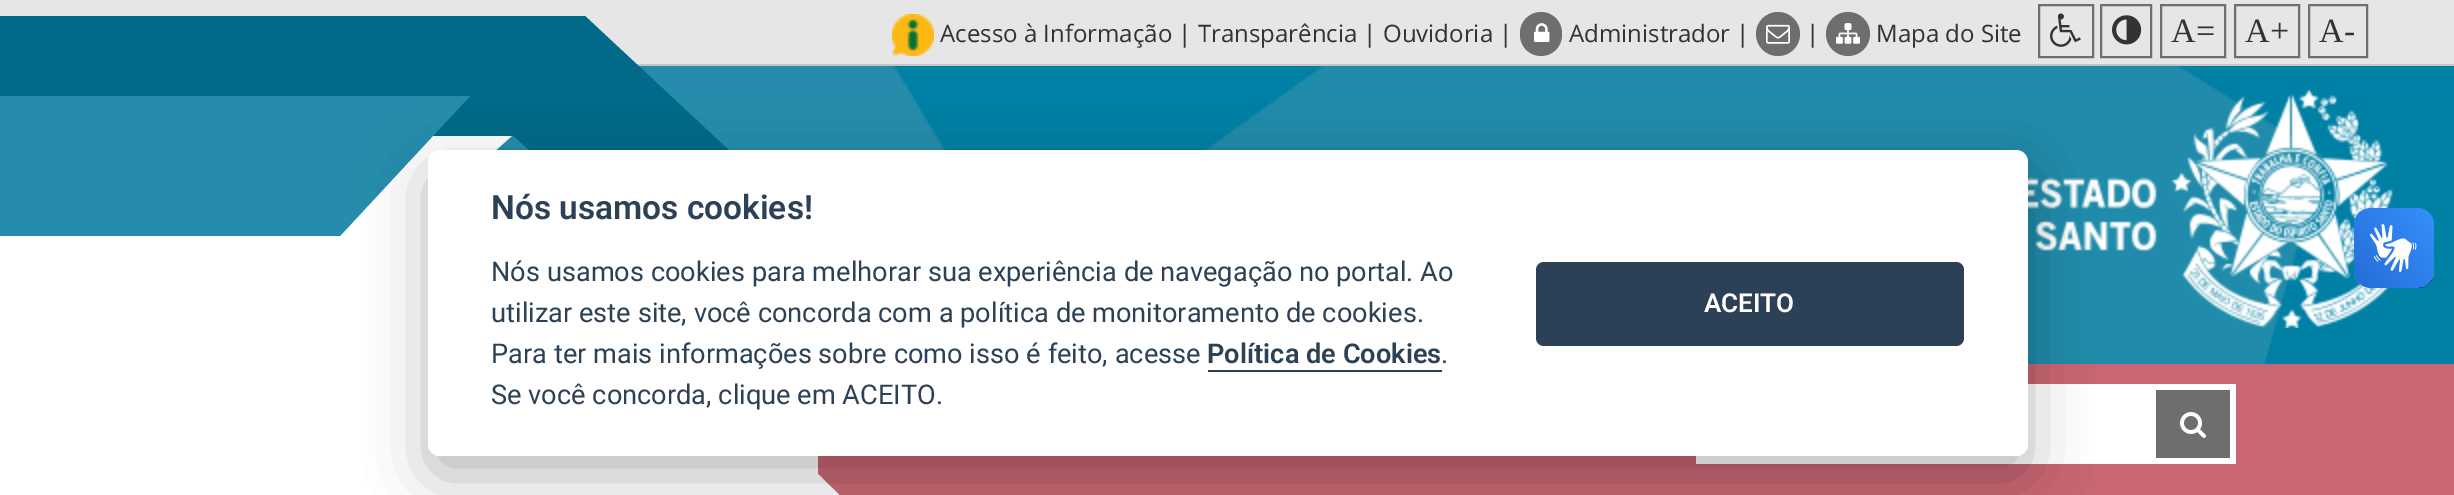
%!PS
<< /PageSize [2454 495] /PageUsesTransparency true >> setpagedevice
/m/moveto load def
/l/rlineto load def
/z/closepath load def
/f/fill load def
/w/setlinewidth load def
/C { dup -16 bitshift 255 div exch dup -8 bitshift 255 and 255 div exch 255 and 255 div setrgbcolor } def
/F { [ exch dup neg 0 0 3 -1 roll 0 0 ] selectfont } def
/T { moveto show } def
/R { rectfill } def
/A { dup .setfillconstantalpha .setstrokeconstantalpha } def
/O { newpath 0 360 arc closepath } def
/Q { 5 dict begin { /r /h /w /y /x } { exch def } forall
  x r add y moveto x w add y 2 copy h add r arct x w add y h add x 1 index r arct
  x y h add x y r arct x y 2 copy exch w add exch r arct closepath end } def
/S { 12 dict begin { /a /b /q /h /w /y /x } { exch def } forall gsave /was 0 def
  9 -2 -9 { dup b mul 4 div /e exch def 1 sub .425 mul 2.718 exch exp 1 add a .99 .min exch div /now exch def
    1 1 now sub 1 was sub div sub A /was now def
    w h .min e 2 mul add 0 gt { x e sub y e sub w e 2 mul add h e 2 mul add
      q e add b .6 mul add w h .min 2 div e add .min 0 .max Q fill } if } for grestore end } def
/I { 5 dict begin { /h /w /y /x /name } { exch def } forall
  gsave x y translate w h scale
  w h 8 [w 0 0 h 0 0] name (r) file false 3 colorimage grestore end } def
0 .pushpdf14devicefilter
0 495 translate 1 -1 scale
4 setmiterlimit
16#E6E6E6 C
0 0 2454 495 R
16#0080A5 C
496 66 1958 298 R
16#FFFFFF C
0 171 400 193 R
(1.rgb) 496 66 1827 298 I
400 66 m 190 0 l -190 170 l z f
680 364 m -280 0 l 0 -260 l z f
16#006A88 C
0 16 514 120 R
16#C5C5C5 C
636 64 1818 2 R
16#006A88 C
385 16 m 200 0 l 236 220 l -200 0 l z f
16#258DAB C
0 96 150 140 R
150 96 m 320 0 l -130 140 l -190 0 l z f
(2.rgb) 2028 90 365 238 I
(3.rgb) 892 14 42 42 I
/OpenSans-Regular 24 F
16#333333 C
(Acesso à Informação | Transparência | Ouvidoria |) 940 42 T
16#6E6E6E C
1520 12 42 44 21 Q f
(4.rgb) 1534 23 16 19 I
16#333333 C
(Administrador |) 1569 42 T
16#6E6E6E C
1778 34 22 O f
(5.rgb) 1766 24 24 20 I
16#333333 C
(|) 1806 42 T
16#6E6E6E C
1848 34 22 O f
(6.rgb) 1836 23 24 21 I
16#333333 C
(Mapa do Site) 1876 42 T
16#6E6E6E C
2 w
2039 5 54 52 rectstroke
(7.rgb) 2050 13 31 34 I
2101 5 50 52 rectstroke
(8.rgb) 2112 15 30 30 I
2161 5 64 52 rectstroke
/LiberationSerif-Regular 34 F
16#333333 C
(A=) 2171 42 T
16#6E6E6E C
2235 5 64 52 rectstroke
16#333333 C
(A+) 2245 42 T
16#6E6E6E C
2309 5 58 52 rectstroke
16#333333 C
(A-) 2319 42 T
16#FFFFFF C
0 364 818 131 R
16#C86673 C
818 364 1636 131 R
16#FFFFFF C
1696 384 540 80 R
16#6E6E6E C
2156 390 74 68 R
(9.rgb) 2180 412 26 26 I
16#FFFFFF C
1042 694 m -224 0 l 0 -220 l z f
16#020203 C
428 170 1600 306 12 30 .28 S
16#FFFFFF C
428 150 1600 306 12 Q f
/Roboto-SemiBold 33.5 F
16#2D4156 C
(Nós usamos cookies!) 491 219 T
/Roboto-Regular 27.2 F
(Nós usamos cookies para melhorar sua experiência de navegação no portal. Ao) 491 281 T
(utilizar este site, você concorda com a política de monitoramento de cookies.) 491 322 T
(Para ter mais informações sobre como isso é feito, acesse) 491 363 T
/Roboto-SemiBold 27.2 F
(Política de Cookies) 1207 363 T
1208 370 234 2 R
/Roboto-Regular 27.2 F
(.) 1441 363 T
(Se você concorda, clique em ACEITO.) 491 404 T
1536 262 428 84 8 Q f
/Roboto-SemiBold 26 F
16#FFFFFF C
(ACEITO) 1704 312 T
(10.rgb) 2354 208 80 80 I
(11.rgb) 2354 208 80 80 I
.poppdf14devicefilter showpage
